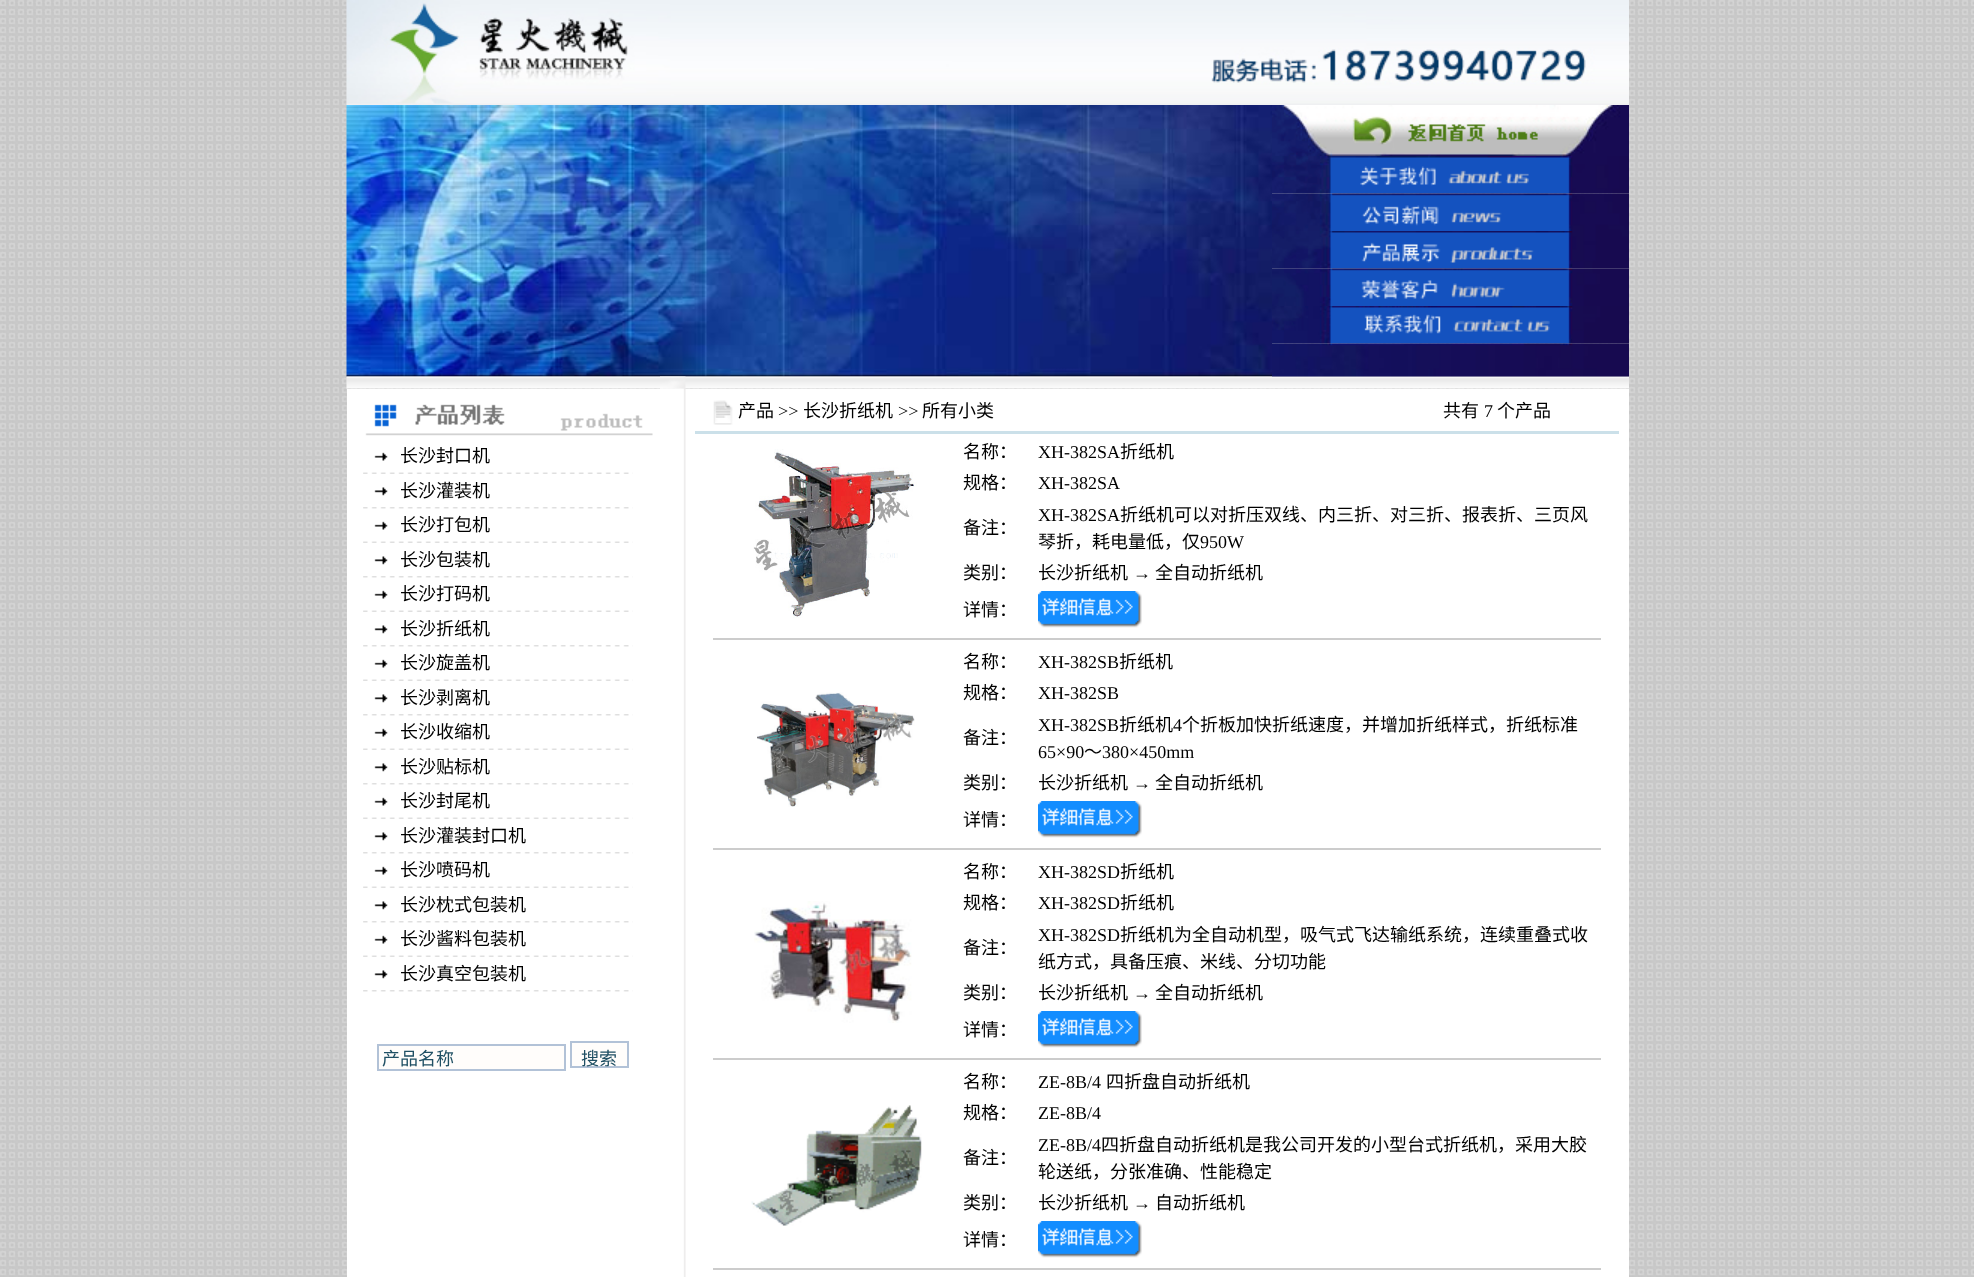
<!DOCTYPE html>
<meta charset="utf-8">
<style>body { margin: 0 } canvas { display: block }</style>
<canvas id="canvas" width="1974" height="1277"></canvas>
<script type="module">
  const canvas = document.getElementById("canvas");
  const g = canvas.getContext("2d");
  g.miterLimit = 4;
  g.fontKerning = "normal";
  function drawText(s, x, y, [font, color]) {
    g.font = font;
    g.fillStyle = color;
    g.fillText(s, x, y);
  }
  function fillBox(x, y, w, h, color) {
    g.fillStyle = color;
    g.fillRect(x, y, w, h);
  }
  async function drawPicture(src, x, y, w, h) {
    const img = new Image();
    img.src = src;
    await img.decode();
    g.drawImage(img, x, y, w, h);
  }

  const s1 = ["18px Noto Sans CJK SC", "#000000"];
  const s2 = ["18px Noto Sans CJK SC", "#205064"];
  const s3 = ["18px Liberation Serif", "#000000"];

  fillBox(0, 0, 1974, 1277, "#FFFFFF");
  await drawPicture("pic1.png", 0, 0, 1974, 1277);
  await drawPicture("pic2.png", 346, 0, 1283, 105);
  await drawPicture("pic3.png", 346, 105, 926, 272);
  await drawPicture("pic4.png", 1272, 105, 357, 51);
  await drawPicture("pic5.png", 1272, 156, 357, 38);
  await drawPicture("pic6.png", 1272, 193, 357, 38);
  await drawPicture("pic7.png", 1272, 231, 357, 38);
  await drawPicture("pic8.png", 1272, 268, 357, 38);
  await drawPicture("pic9.png", 1272, 306, 357, 38);
  await drawPicture("pic11.png", 346, 376, 1283, 13);
  await drawPicture("pic10.png", 1272, 343, 357, 34);
  await drawPicture("pic12.png", 660, 376, 26, 13);
  fillBox(347, 389, 1282, 888, "#FFFFFF");
  await drawPicture("pic13.png", 365, 404, 288, 32);
  await drawPicture("pic14.png", 374, 452, 14, 9);
  drawText("长沙封口机", 400, 462, s1);
  await drawPicture("pic15.png", 363, 472, 270, 2);
  await drawPicture("pic16.png", 374, 487, 14, 9);
  drawText("长沙灌装机", 400, 497, s1);
  await drawPicture("pic17.png", 363, 507, 270, 2);
  await drawPicture("pic14.png", 374, 521, 14, 9);
  drawText("长沙打包机", 400, 531, s1);
  await drawPicture("pic15.png", 363, 541, 270, 2);
  await drawPicture("pic16.png", 374, 556, 14, 9);
  drawText("长沙包装机", 400, 566, s1);
  await drawPicture("pic17.png", 363, 576, 270, 2);
  await drawPicture("pic14.png", 374, 590, 14, 9);
  drawText("长沙打码机", 400, 600, s1);
  await drawPicture("pic15.png", 363, 610, 270, 2);
  await drawPicture("pic16.png", 374, 625, 14, 9);
  drawText("长沙折纸机", 400, 635, s1);
  await drawPicture("pic17.png", 363, 645, 270, 2);
  await drawPicture("pic14.png", 374, 659, 14, 9);
  drawText("长沙旋盖机", 400, 669, s1);
  await drawPicture("pic15.png", 363, 679, 270, 2);
  await drawPicture("pic16.png", 374, 694, 14, 9);
  drawText("长沙剥离机", 400, 704, s1);
  await drawPicture("pic17.png", 363, 714, 270, 2);
  await drawPicture("pic14.png", 374, 728, 14, 9);
  drawText("长沙收缩机", 400, 738, s1);
  await drawPicture("pic15.png", 363, 748, 270, 2);
  await drawPicture("pic16.png", 374, 763, 14, 9);
  drawText("长沙贴标机", 400, 773, s1);
  await drawPicture("pic17.png", 363, 783, 270, 2);
  await drawPicture("pic14.png", 374, 797, 14, 9);
  drawText("长沙封尾机", 400, 807, s1);
  await drawPicture("pic15.png", 363, 817, 270, 2);
  await drawPicture("pic16.png", 374, 832, 14, 9);
  drawText("长沙灌装封口机", 400, 842, s1);
  await drawPicture("pic17.png", 363, 852, 270, 2);
  await drawPicture("pic14.png", 374, 866, 14, 9);
  drawText("长沙喷码机", 400, 876, s1);
  await drawPicture("pic15.png", 363, 886, 270, 2);
  await drawPicture("pic16.png", 374, 901, 14, 9);
  drawText("长沙枕式包装机", 400, 911, s1);
  await drawPicture("pic17.png", 363, 921, 270, 2);
  await drawPicture("pic14.png", 374, 935, 14, 9);
  drawText("长沙酱料包装机", 400, 945, s1);
  await drawPicture("pic15.png", 363, 955, 270, 2);
  await drawPicture("pic16.png", 374, 970, 14, 9);
  drawText("长沙真空包装机", 400, 980, s1);
  await drawPicture("pic17.png", 363, 990, 270, 2);
  g.fillStyle = "#FFFDFB";
  g.beginPath();
  g.rect(378, 1045, 187, 25);
  g.fill();
  g.strokeStyle = "#B2C2D7";
  g.lineWidth = 2;
  g.stroke();
  drawText("产品名称", 382, 1065, s2);
  g.fillStyle = "#FFFDFB";
  g.beginPath();
  g.rect(571, 1042, 57, 25);
  g.fill();
  g.stroke();
  drawText("搜索", 581, 1065, s2);
  await drawPicture("pic18.png", 660, 388, 26, 889);
  await drawPicture("pic19.png", 713, 400, 20, 25);
  drawText("产品", 738, 417, s1);
  drawText(">>", 778, 417, s3);
  drawText("长沙折纸机", 803, 417, s1);
  drawText(">>", 898, 417, s3);
  drawText("所有小类", 922, 417, s1);
  drawText("共有", 1443, 417, s1);
  drawText("7", 1484, 417, s3);
  drawText("个产品", 1497, 417, s1);
  fillBox(695, 431, 924, 3, "#CBE0E9");
  await drawPicture("pic20.png", 753, 449, 164, 169);
  drawText("名称：", 963, 458, s1);
  drawText("XH-382SA", 1038, 458, s3);
  drawText("折纸机", 1120, 458, s1);
  drawText("规格：", 963, 489, s1);
  drawText("XH-382SA", 1038, 489, s3);
  drawText("备注：", 963, 534, s1);
  drawText("XH-382SA", 1038, 521, s3);
  drawText("折纸机可以对折压双线、内三折、对三折、报表折、三页风", 1120, 521, s1);
  drawText("琴折，耗电量低，仅", 1038, 548, s1);
  drawText("950W", 1200, 548, s3);
  drawText("类别：", 963, 579, s1);
  drawText("长沙折纸机", 1038, 579, s1);
  drawText("→", 1133, 579, s3);
  drawText("全自动折纸机", 1155, 579, s1);
  drawText("详情：", 963, 616, s1);
  await drawPicture("pic21.png", 1038, 591, 104, 37);
  fillBox(713, 638, 888, 2, "#CCCCCC");
  drawText("名称：", 963, 668, s1);
  drawText("XH-382SB", 1038, 668, s3);
  drawText("折纸机", 1119, 668, s1);
  await drawPicture("pic22.png", 757, 692, 158, 115);
  drawText("规格：", 963, 699, s1);
  drawText("XH-382SB", 1038, 699, s3);
  drawText("备注：", 963, 744, s1);
  drawText("XH-382SB", 1038, 731, s3);
  drawText("折纸机", 1119, 731, s1);
  drawText("4", 1173, 731, s3);
  drawText("个折板加快折纸速度，并增加折纸样式，折纸标准", 1182, 731, s1);
  drawText("65×90", 1038, 758, s3);
  drawText("～", 1084, 758, s1);
  drawText("380×450mm", 1102, 758, s3);
  drawText("类别：", 963, 789, s1);
  drawText("长沙折纸机", 1038, 789, s1);
  drawText("→", 1133, 789, s3);
  drawText("全自动折纸机", 1155, 789, s1);
  drawText("详情：", 963, 826, s1);
  await drawPicture("pic21.png", 1038, 801, 104, 37);
  fillBox(713, 848, 888, 2, "#CCCCCC");
  drawText("名称：", 963, 878, s1);
  drawText("XH-382SD", 1038, 878, s3);
  drawText("折纸机", 1120, 878, s1);
  await drawPicture("pic23.png", 754, 901, 158, 122);
  drawText("规格：", 963, 909, s1);
  drawText("XH-382SD", 1038, 909, s3);
  drawText("折纸机", 1120, 909, s1);
  drawText("备注：", 963, 954, s1);
  drawText("XH-382SD", 1038, 941, s3);
  drawText("折纸机为全自动机型，吸气式飞达输纸系统，连续重叠式收", 1120, 941, s1);
  drawText("纸方式，具备压痕、米线、分切功能", 1038, 968, s1);
  drawText("类别：", 963, 999, s1);
  drawText("长沙折纸机", 1038, 999, s1);
  drawText("→", 1133, 999, s3);
  drawText("全自动折纸机", 1155, 999, s1);
  drawText("详情：", 963, 1036, s1);
  await drawPicture("pic21.png", 1038, 1011, 104, 37);
  fillBox(713, 1058, 888, 2, "#CCCCCC");
  drawText("名称：", 963, 1088, s1);
  drawText("ZE-8B/4", 1038, 1088, s3);
  drawText("四折盘自动折纸机", 1106, 1088, s1);
  await drawPicture("pic24.png", 751, 1105, 171, 121);
  drawText("规格：", 963, 1119, s1);
  drawText("ZE-8B/4", 1038, 1119, s3);
  drawText("备注：", 963, 1164, s1);
  drawText("ZE-8B/4", 1038, 1151, s3);
  drawText("四折盘自动折纸机是我公司开发的小型台式折纸机，采用大胶", 1101, 1151, s1);
  drawText("轮送纸，分张准确、性能稳定", 1038, 1178, s1);
  drawText("类别：", 963, 1209, s1);
  drawText("长沙折纸机", 1038, 1209, s1);
  drawText("→", 1133, 1209, s3);
  drawText("自动折纸机", 1155, 1209, s1);
  drawText("详情：", 963, 1246, s1);
  await drawPicture("pic21.png", 1038, 1221, 104, 37);
  fillBox(713, 1268, 888, 2, "#CCCCCC");
</script>
